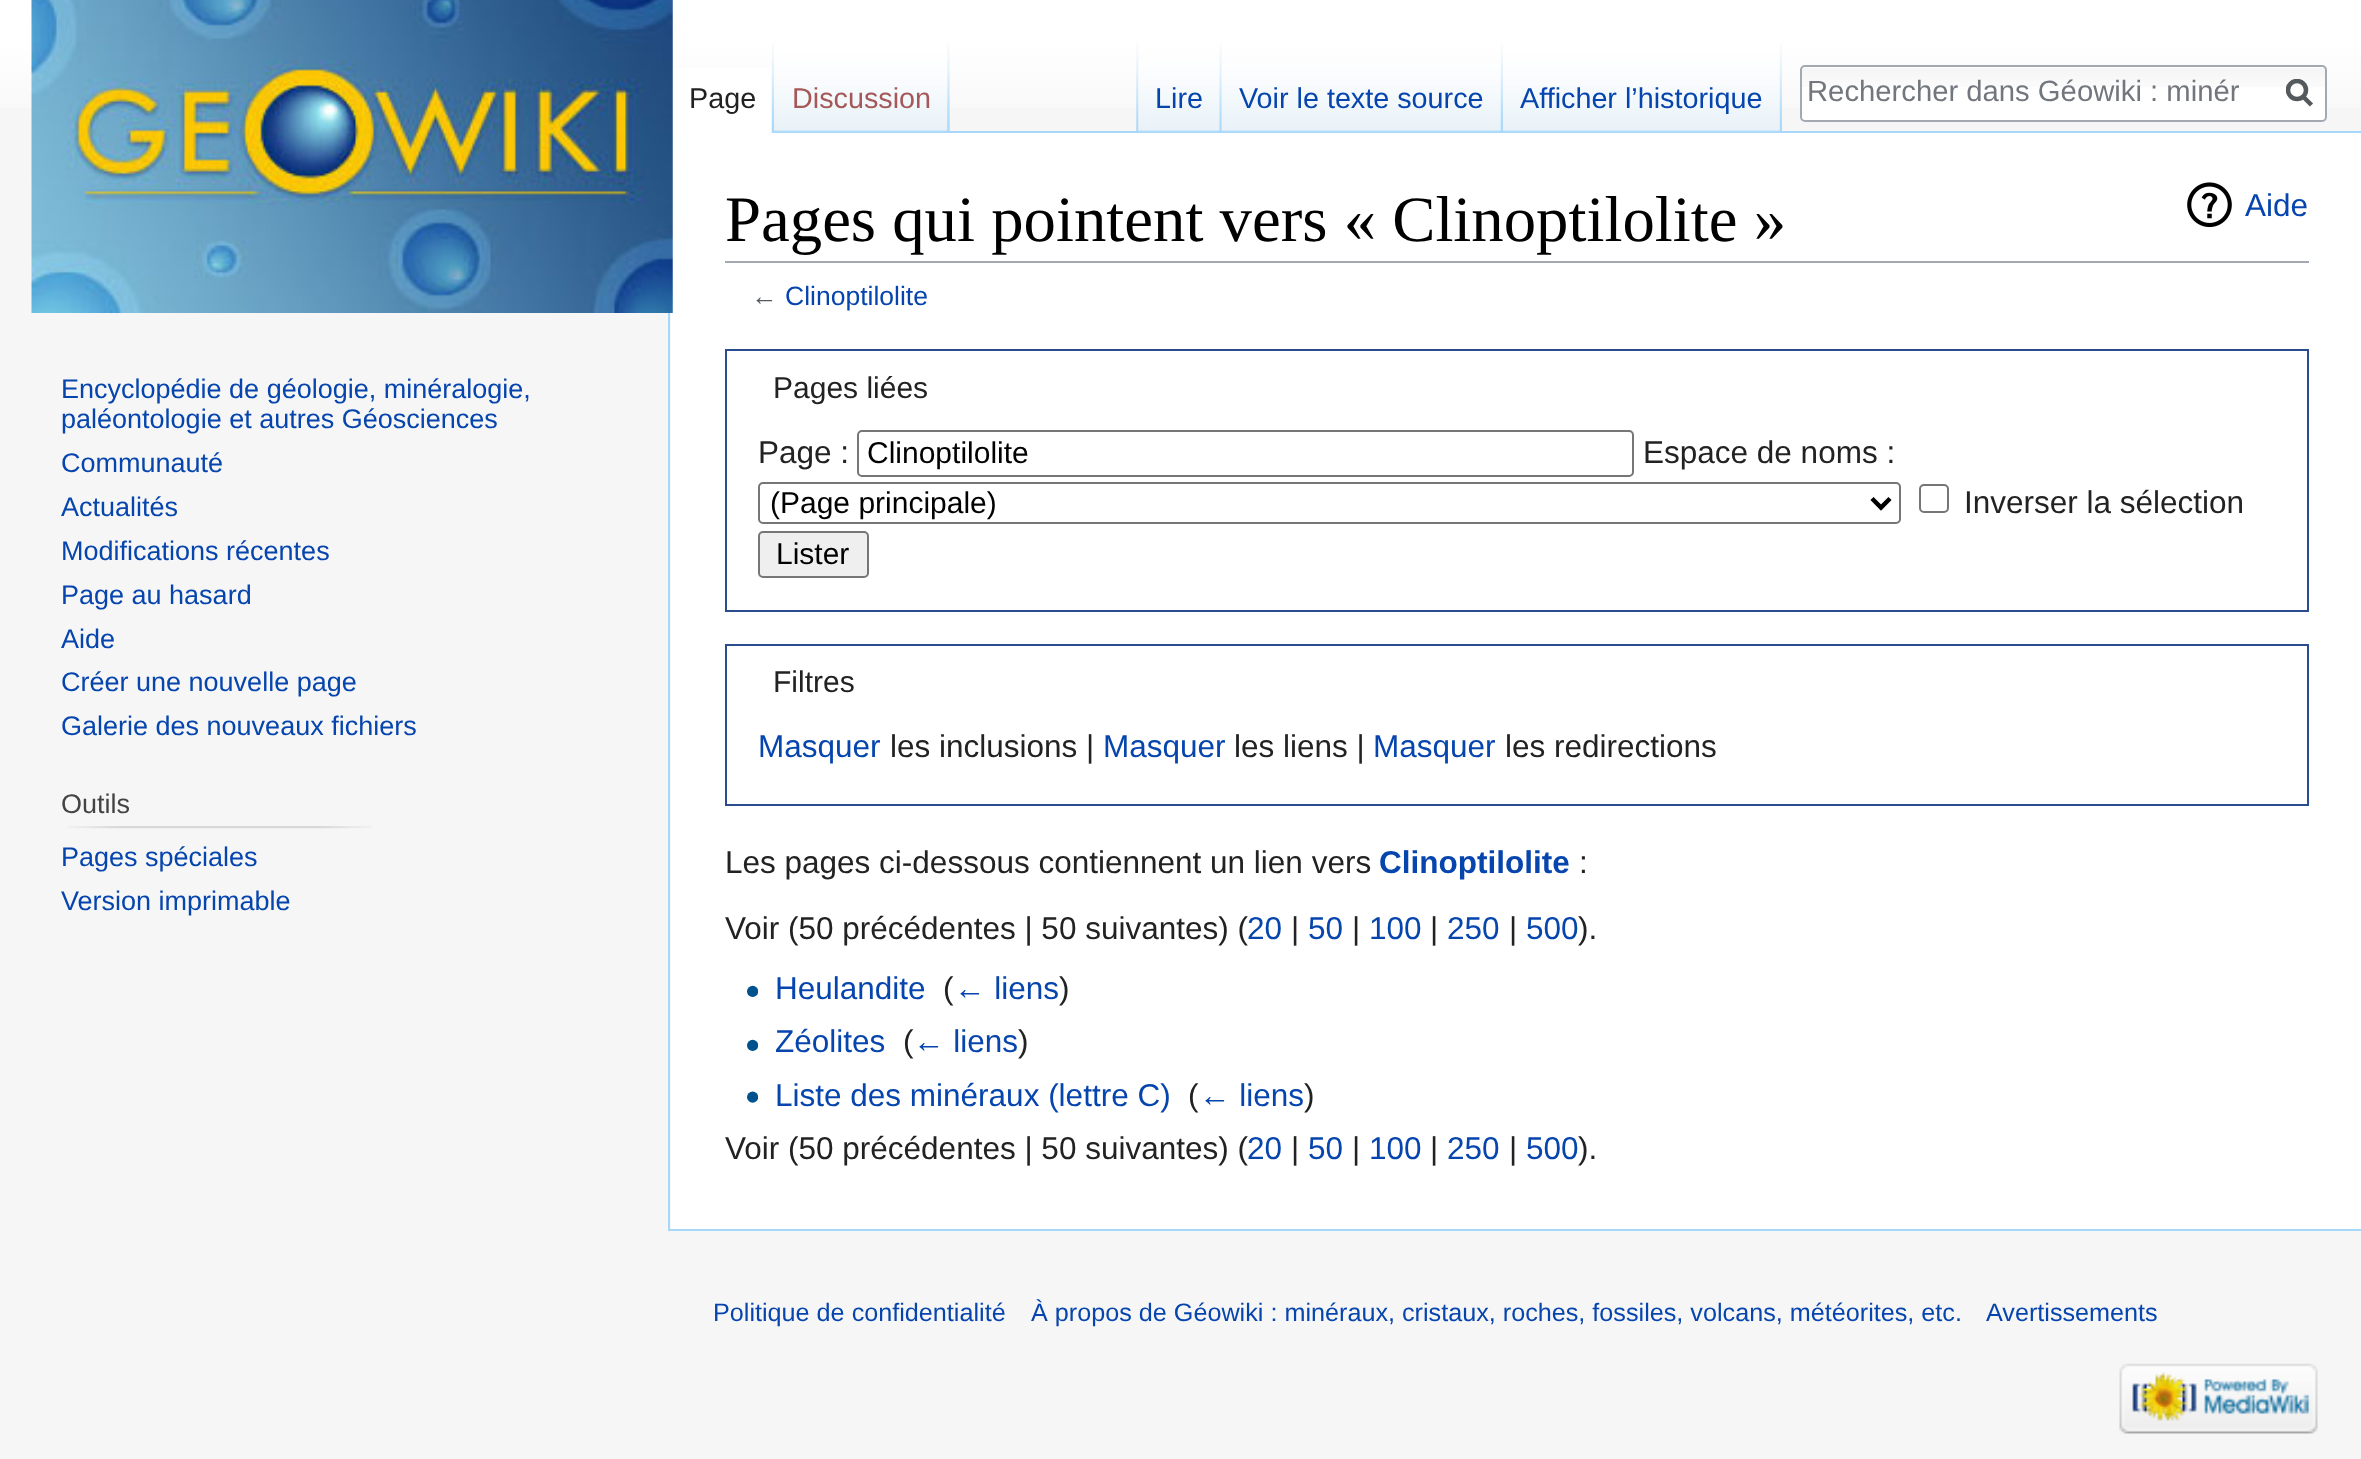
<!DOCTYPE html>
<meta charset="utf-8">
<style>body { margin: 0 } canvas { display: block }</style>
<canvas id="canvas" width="2361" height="1459"></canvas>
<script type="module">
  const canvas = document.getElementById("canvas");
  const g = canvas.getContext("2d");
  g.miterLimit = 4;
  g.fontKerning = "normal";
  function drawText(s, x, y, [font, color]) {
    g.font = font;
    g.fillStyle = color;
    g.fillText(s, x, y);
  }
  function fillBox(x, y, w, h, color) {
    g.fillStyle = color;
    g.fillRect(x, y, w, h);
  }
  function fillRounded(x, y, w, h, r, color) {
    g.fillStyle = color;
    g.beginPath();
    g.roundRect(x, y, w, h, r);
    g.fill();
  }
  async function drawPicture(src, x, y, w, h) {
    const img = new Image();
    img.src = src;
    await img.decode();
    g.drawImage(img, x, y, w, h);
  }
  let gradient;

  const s1 = ["28.75px Liberation Sans", "#222222"];
  const s2 = ["28.75px Liberation Sans", "#A55858"];
  const s3 = ["28.75px Liberation Sans", "#0645AD"];
  const s4 = ["29.25px Liberation Sans", "#72777D"];
  const s5 = ["27px Liberation Sans", "#0645AD"];
  const s6 = ["27px Liberation Sans", "#444444"];
  const s7 = ["64.75px Liberation Serif", "#000000"];
  const s8 = ["31.5px Liberation Sans", "#0645AD"];
  const s9 = ["26.5px Liberation Sans", "#54595D"];
  const s10 = ["26.5px Liberation Sans", "#0645AD"];
  const s11 = ["30px Liberation Sans", "#222222"];
  const s12 = ["31.5px Liberation Sans", "#222222"];
  const s13 = ["30px Liberation Sans", "#000000"];
  const s14 = ["bold 31.5px Liberation Sans", "#0645AD"];
  const s15 = ["25.2px Liberation Sans", "#0645AD"];

  fillBox(0, 0, 2361, 1459, "#F6F6F6");
  gradient = g.createLinearGradient(1181, -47, 1181, 133);
  gradient.addColorStop(0.5, "#FFFFFF");
  gradient.addColorStop(1, "#F6F6F6");
  g.fillStyle = gradient;
  g.fillRect(0, 0, 2361, 108);
  await drawPicture("pic1.png", 949, 43, 1, 88);
  fillBox(672, 68, 100, 65, "#FFFFFF");
  await drawPicture("pic2.png", 771, 43, 3, 90);
  drawText("Page", 689, 108, s1);
  fillBox(774, 131, 1587, 2, "#A7D7F9");
  await drawPicture("pic3.png", 774, 43, 176, 89);
  await drawPicture("pic4.png", 947, 43, 3, 89);
  drawText("Discussion", 792, 108, s2);
  await drawPicture("pic5.png", 1136, 43, 3, 88);
  await drawPicture("pic6.png", 1138, 60, 84, 72);
  await drawPicture("pic7.png", 1219, 43, 3, 89);
  drawText("Lire", 1155, 108, s3);
  await drawPicture("pic8.png", 1221, 64, 280, 68);
  await drawPicture("pic9.png", 1500, 43, 3, 89);
  drawText("Voir le texte source", 1239, 108, s3);
  await drawPicture("pic10.png", 1503, 43, 277, 89);
  await drawPicture("pic11.png", 1779, 43, 3, 89);
  drawText("Afficher l’historique", 1520, 108, s3);
  fillRounded(1800, 65, 527, 57, 5, "#FFFFFF");
  await drawPicture("pic12.png", 1800, 68, 525, 19);
  g.beginPath();
  g.roundRect(1801, 66, 525, 55, 4);
  g.strokeStyle = "#A2A9B1";
  g.lineWidth = 2;
  g.stroke();
  drawText("Rechercher dans Géowiki : minér", 1807, 101, s4);
  g.beginPath();
  g.moveTo(2311.5, 105);
  g.lineTo(2302.5, 96);
  g.strokeStyle = "#54595D";
  g.lineWidth = 4.5;
  g.stroke();
  g.save();
  g.beginPath();
  g.rect(2286, 79, 27, 29);
  g.clip();
  g.beginPath();
  g.arc(2297, 90, 9, 0, Math.PI * 2);
  g.stroke();
  g.restore();
  fillBox(671, 133, 1690, 1096, "#FFFFFF");
  await drawPicture("pic13.png", 31, 0, 642, 313);
  drawText("Encyclopédie de géologie, minéralogie,", 61, 398, s5);
  drawText("paléontologie et autres Géosciences", 61, 428, s5);
  drawText("Communauté", 61, 472, s5);
  drawText("Actualités", 61, 516, s5);
  drawText("Modifications récentes", 61, 560, s5);
  drawText("Page au hasard", 61, 604, s5);
  drawText("Aide", 61, 648, s5);
  drawText("Créer une nouvelle page", 61, 691, s5);
  drawText("Galerie des nouveaux fichiers", 61, 735, s5);
  drawText("Outils", 61, 813, s6);
  await drawPicture("pic14.png", 67, 826, 305, 3);
  drawText("Pages spéciales", 61, 866, s5);
  drawText("Version imprimable", 61, 910, s5);
  fillBox(668, 1229, 1693, 2, "#A7D7F9");
  fillBox(668, 313, 2, 918, "#A7D7F9");
  fillBox(725, 261, 1584, 2, "#A2A9B1");
  drawText("Pages qui pointent vers « Clinoptilolite »", 725, 241, s7);
  await drawPicture("pic15.png", 2187, 182, 45, 46);
  drawText("Aide", 2245, 216, s8);
  drawText("←", 751, 305, s9);
  drawText("Clinoptilolite", 785, 305, s10);
  g.strokeStyle = "#2A4B8D";
  g.lineWidth = 2;
  g.strokeRect(726, 350, 1582, 261);
  drawText("Pages liées", 773, 398, s11);
  drawText("Page :", 758, 463, s12);
  g.beginPath();
  g.roundRect(858, 431, 775, 45, 4);
  g.strokeStyle = "#767676";
  g.stroke();
  drawText("Clinoptilolite", 867, 463, s13);
  drawText("Espace de noms :", 1643, 463, s12);
  g.beginPath();
  g.roundRect(759, 483, 1141, 40, 4);
  g.stroke();
  g.beginPath();
  g.moveTo(1872, 498.5);
  g.lineTo(1881, 507.5);
  g.lineTo(1890, 498.5);
  g.strokeStyle = "#000000";
  g.lineWidth = 4.5;
  g.stroke();
  drawText("(Page principale)", 770, 513, s13);
  g.beginPath();
  g.roundRect(1920, 485, 28, 27, 4);
  g.strokeStyle = "#767676";
  g.lineWidth = 2;
  g.stroke();
  drawText("Inverser la sélection", 1964, 513, s12);
  g.fillStyle = "#EFEFEF";
  g.beginPath();
  g.roundRect(759, 532, 109, 45, 4);
  g.fill();
  g.stroke();
  drawText("Lister", 776, 564, s13);
  g.strokeStyle = "#2A4B8D";
  g.strokeRect(726, 645, 1582, 160);
  drawText("Filtres", 773, 692, s11);
  drawText("Masquer", 758, 757, s8);
  drawText("les inclusions |", 890, 757, s12);
  drawText("Masquer", 1103, 757, s8);
  drawText("les liens |", 1234, 757, s12);
  drawText("Masquer", 1373, 757, s8);
  drawText("les redirections", 1505, 757, s12);
  drawText("Les pages ci-dessous contiennent un lien vers", 725, 873, s12);
  drawText("Clinoptilolite", 1379, 873, s14);
  drawText(":", 1579, 873, s12);
  drawText("Voir (50 précédentes | 50 suivantes) (", 725, 939, s12);
  drawText("20", 1247, 939, s8);
  drawText("|", 1291, 939, s12);
  drawText("50", 1308, 939, s8);
  drawText("|", 1352, 939, s12);
  drawText("100", 1369, 939, s8);
  drawText("|", 1430, 939, s12);
  drawText("250", 1447, 939, s8);
  drawText("|", 1509, 939, s12);
  drawText("500", 1526, 939, s8);
  drawText(").", 1578, 939, s12);
  await drawPicture("pic16.png", 747, 985, 11, 12);
  drawText("Heulandite", 775, 999, s8);
  drawText("(", 943, 999, s12);
  drawText("← liens", 954, 999, s8);
  drawText(")", 1059, 999, s12);
  await drawPicture("pic16.png", 747, 1039, 11, 12);
  drawText("Zéolites", 775, 1052, s8);
  drawText("(", 903, 1052, s12);
  drawText("← liens", 913, 1052, s8);
  drawText(")", 1018, 1052, s12);
  await drawPicture("pic17.png", 747, 1091, 11, 12);
  drawText("Liste des minéraux (lettre C)", 775, 1106, s8);
  drawText("(", 1188, 1106, s12);
  drawText("← liens", 1199, 1106, s8);
  drawText(")", 1304, 1106, s12);
  drawText("Voir (50 précédentes | 50 suivantes) (", 725, 1159, s12);
  drawText("20", 1247, 1159, s8);
  drawText("|", 1291, 1159, s12);
  drawText("50", 1308, 1159, s8);
  drawText("|", 1352, 1159, s12);
  drawText("100", 1369, 1159, s8);
  drawText("|", 1430, 1159, s12);
  drawText("250", 1447, 1159, s8);
  drawText("|", 1509, 1159, s12);
  drawText("500", 1526, 1159, s8);
  drawText(").", 1578, 1159, s12);
  drawText("Politique de confidentialité", 713, 1321, s15);
  drawText("À propos de Géowiki : minéraux, cristaux, roches, fossiles, volcans, météorites, etc.", 1031, 1321, s15);
  drawText("Avertissements", 1986, 1321, s15);
  await drawPicture("pic18.png", 2119, 1363, 199, 71);
</script>
